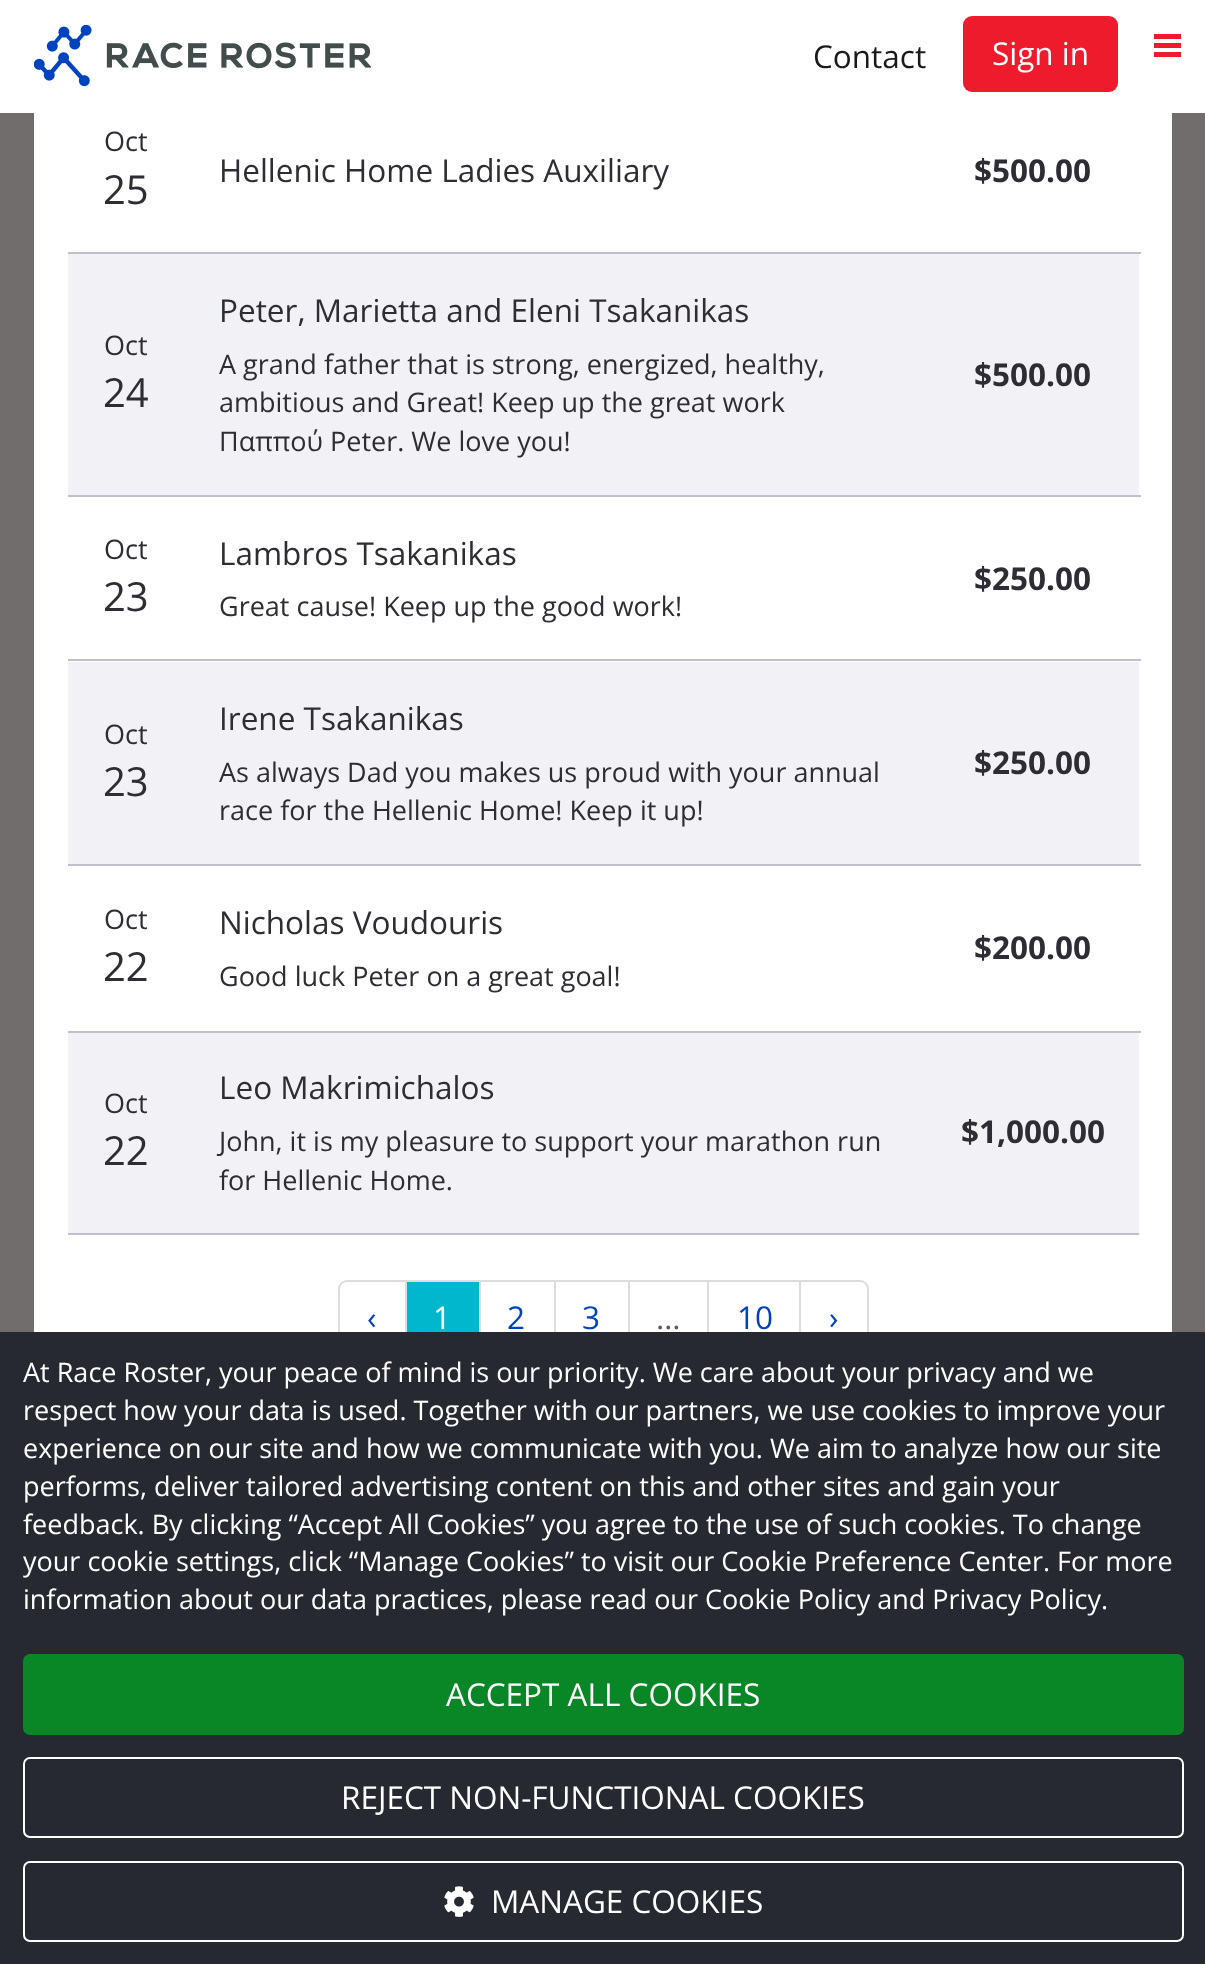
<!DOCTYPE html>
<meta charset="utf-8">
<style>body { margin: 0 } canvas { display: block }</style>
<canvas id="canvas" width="1205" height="1964"></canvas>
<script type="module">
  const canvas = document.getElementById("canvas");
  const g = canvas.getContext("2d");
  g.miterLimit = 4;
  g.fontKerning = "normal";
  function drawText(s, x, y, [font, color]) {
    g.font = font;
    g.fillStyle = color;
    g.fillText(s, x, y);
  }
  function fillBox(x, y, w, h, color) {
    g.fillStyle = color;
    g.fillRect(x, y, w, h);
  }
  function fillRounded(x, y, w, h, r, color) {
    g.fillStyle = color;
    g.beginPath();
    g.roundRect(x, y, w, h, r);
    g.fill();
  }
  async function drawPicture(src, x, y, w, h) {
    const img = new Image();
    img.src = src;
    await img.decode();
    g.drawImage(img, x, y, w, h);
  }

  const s1 = ["31.5px Open Sans", "#1A1A1A"];
  const s2 = ["31.5px Open Sans", "#FFFFFF"];
  const s3 = ["27px Open Sans", "#2D2D33"];
  const s4 = ["40px Open Sans", "#2D2D33"];
  const s5 = ["31.5px Open Sans", "#2D2D33"];
  const s6 = ["bold 31.5px Open Sans", "#2D2D33"];
  const s7 = ["31.5px Open Sans", "#0043BF"];
  const s8 = ["31.5px Open Sans", "#5C5C66"];
  const s9 = ["27px Open Sans", "#FFFFFF"];

  fillBox(0, 0, 1205, 1964, "#726D6D");
  fillBox(0, 0, 1205, 113, "#FFFFFF");
  await drawPicture("pic1.png", 34, 25, 337, 62);
  drawText("Contact", 813, 68, s1);
  fillRounded(963, 16, 155, 76, 9, "#EE1B2D");
  drawText("Sign in", 992, 65, s2);
  fillBox(1154, 34, 27, 5, "#EE1B2D");
  fillBox(1154, 43, 27, 5, "#EE1B2D");
  fillBox(1154, 52, 27, 5, "#EE1B2D");
  fillBox(34, 113, 1138, 1219, "#FFFFFF");
  fillBox(68, 1233, 1071, 2, "#C0C0CC");
  drawText("Oct", 104, 151, s3);
  drawText("25", 103, 204, s4);
  drawText("Hellenic Home Ladies Auxiliary", 219, 182, s5);
  drawText("$500.00", 974, 182, s6);
  fillBox(68, 254, 1071, 241, "#F2F2F6");
  fillBox(68, 252, 1073, 2, "#C0C0CC");
  drawText("Oct", 104, 355, s3);
  drawText("24", 103, 407, s4);
  drawText("Peter, Marietta and Eleni Tsakanikas", 219, 322, s5);
  drawText("A grand father that is strong, energized, healthy,", 219, 374, s3);
  drawText("ambitious and Great! Keep up the great work", 219, 412, s3);
  drawText("Παππού Peter. We love you!", 219, 451, s3);
  drawText("$500.00", 974, 386, s6);
  fillBox(68, 495, 1073, 2, "#C0C0CC");
  drawText("Oct", 104, 559, s3);
  drawText("23", 103, 611, s4);
  drawText("Lambros Tsakanikas", 219, 565, s5);
  drawText("Great cause! Keep up the good work!", 219, 616, s3);
  drawText("$250.00", 974, 590, s6);
  fillBox(68, 662, 1071, 202, "#F2F2F6");
  fillBox(68, 659, 1073, 2, "#C0C0CC");
  drawText("Oct", 104, 744, s3);
  drawText("23", 103, 796, s4);
  drawText("Irene Tsakanikas", 219, 730, s5);
  drawText("As always Dad you makes us proud with your annual", 219, 782, s3);
  drawText("race for the Hellenic Home! Keep it up!", 219, 820, s3);
  drawText("$250.00", 974, 774, s6);
  fillBox(68, 864, 1073, 2, "#C0C0CC");
  drawText("Oct", 104, 929, s3);
  drawText("22", 103, 981, s4);
  drawText("Nicholas Voudouris", 219, 934, s5);
  drawText("Good luck Peter on a great goal!", 219, 986, s3);
  drawText("$200.00", 974, 959, s6);
  fillBox(68, 1033, 1071, 200, "#F2F2F6");
  fillBox(68, 1031, 1073, 2, "#C0C0CC");
  drawText("Oct", 104, 1113, s3);
  drawText("22", 103, 1165, s4);
  drawText("Leo Makrimichalos", 219, 1099, s5);
  drawText("John, it is my pleasure to support your marathon run", 219, 1151, s3);
  drawText("for Hellenic Home.", 219, 1190, s3);
  drawText("$1,000.00", 961, 1143, s6);
  g.beginPath();
  g.roundRect(339, 1281, 67, 75, [8, 0, 0, 8]);
  g.strokeStyle = "#DDDDDD";
  g.lineWidth = 2;
  g.stroke();
  drawText("‹", 367, 1329, s7);
  fillBox(407, 1282, 72, 50, "#00B7CD");
  g.strokeRect(406, 1281, 75, 75);
  drawText("1", 433, 1329, s2);
  fillBox(481, 1282, 1, 50, "#FFFFFF");
  g.strokeRect(480, 1281, 75, 75);
  drawText("2", 507, 1329, s7);
  g.strokeRect(555, 1281, 74, 75);
  drawText("3", 582, 1329, s7);
  g.strokeRect(629, 1281, 79, 75);
  drawText("…", 656, 1329, s8);
  g.strokeRect(708, 1281, 92, 75);
  drawText("10", 737, 1329, s7);
  g.fillStyle = "#FFFFFF";
  g.beginPath();
  g.roundRect(800, 1281, 68, 75, [0, 8, 8, 0]);
  g.fill();
  g.stroke();
  drawText("›", 829, 1329, s7);
  fillBox(0, 1332, 1205, 632, "#272930");
  drawText("At Race Roster, your peace of mind is our priority. We care about your privacy and we", 23, 1382, s9);
  drawText("respect how your data is used. Together with our partners, we use cookies to improve your", 23, 1420, s9);
  drawText("experience on our site and how we communicate with you. We aim to analyze how our site", 23, 1458, s9);
  drawText("performs, deliver tailored advertising content on this and other sites and gain your", 23, 1496, s9);
  drawText("feedback. By clicking “Accept All Cookies” you agree to the use of such cookies. To change", 23, 1534, s9);
  drawText("your cookie settings, click “Manage Cookies” to visit our Cookie Preference Center. For more", 23, 1571, s9);
  drawText("information about our data practices, please read our Cookie Policy and Privacy Policy.", 23, 1609, s9);
  fillRounded(23, 1654, 1161, 81, 7, "#098726");
  drawText("ACCEPT ALL COOKIES", 446, 1706, s2);
  g.beginPath();
  g.roundRect(24, 1758, 1159, 79, 6);
  g.strokeStyle = "#FFFFFF";
  g.stroke();
  drawText("REJECT NON-FUNCTIONAL COOKIES", 341, 1809, s2);
  g.beginPath();
  g.roundRect(24, 1862, 1159, 79, 6);
  g.stroke();
  await drawPicture("pic2.png", 444, 1886, 30, 31);
  drawText("MANAGE COOKIES", 491, 1913, s2);
</script>
